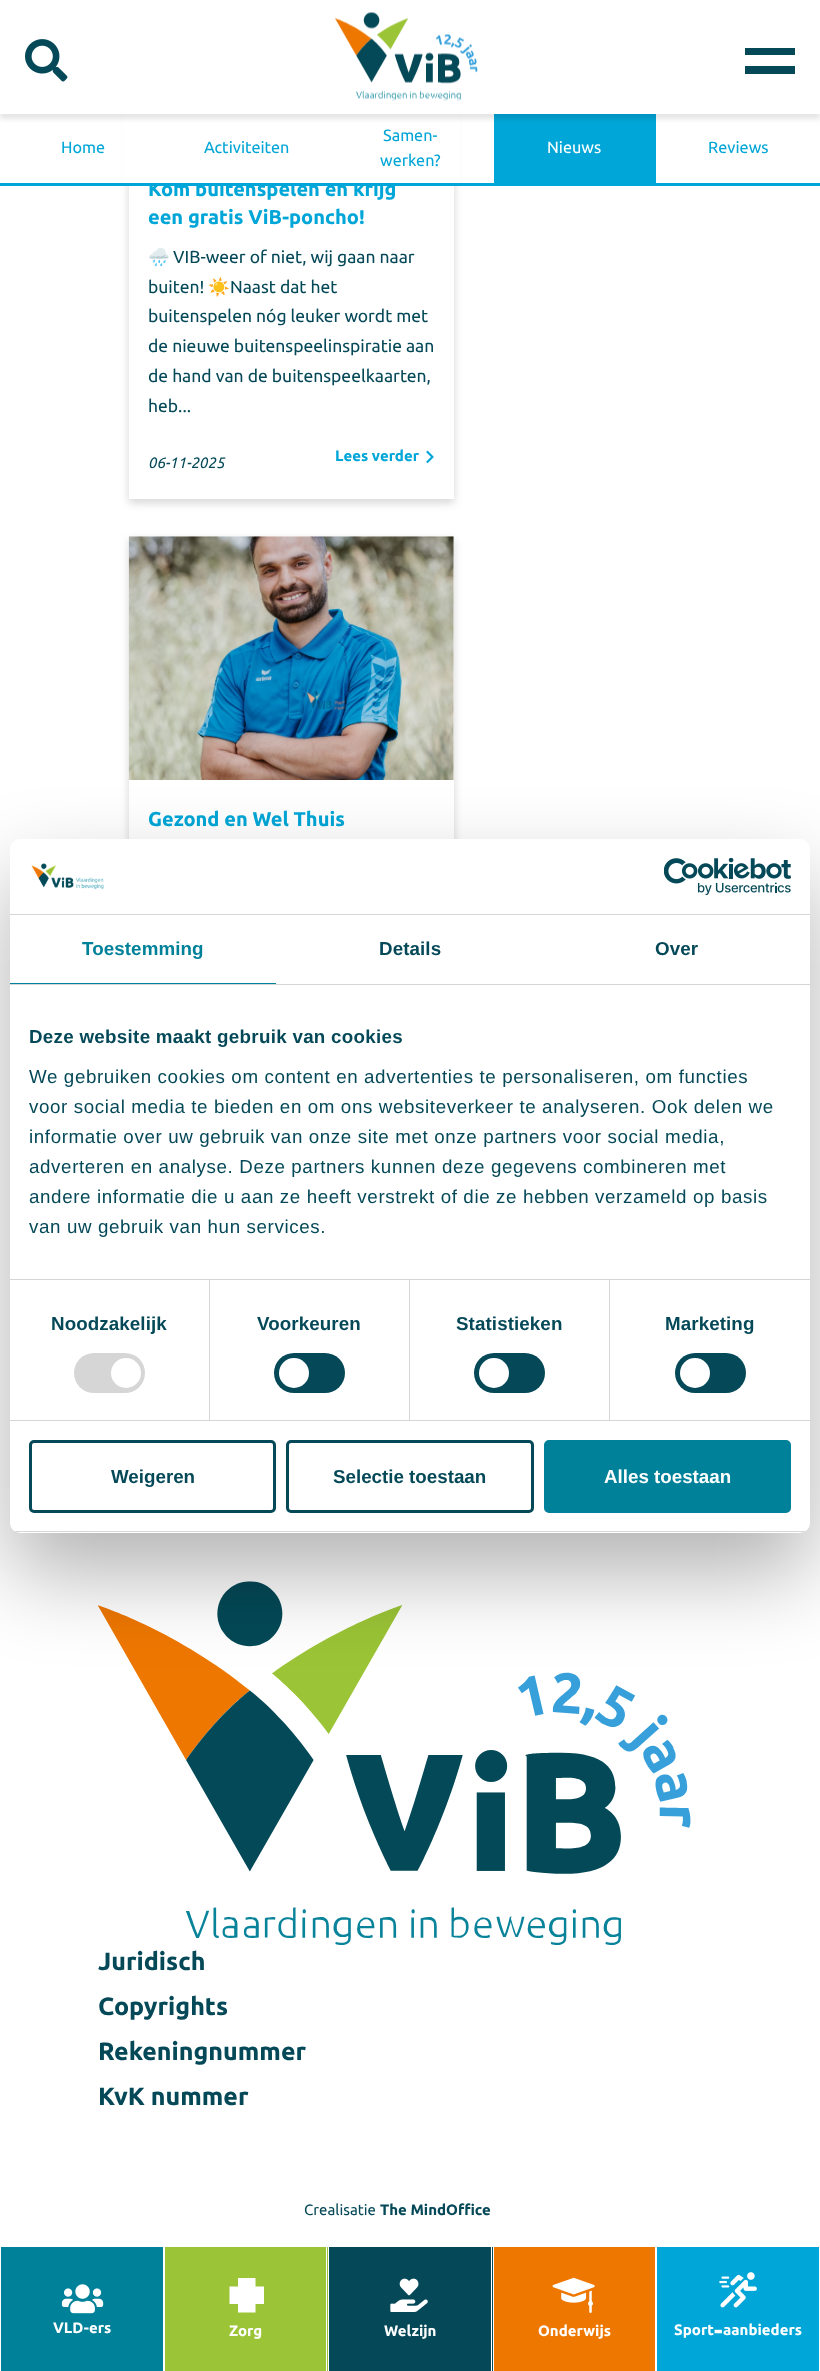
<!DOCTYPE html>
<meta charset="utf-8">
<style>body { margin: 0 } canvas { display: block }</style>
<canvas id="canvas" width="820" height="2371"></canvas>
<script type="module">
  const canvas = document.getElementById("canvas");
  const g = canvas.getContext("2d");
  g.miterLimit = 4;
  g.fontKerning = "normal";
  function drawText(s, x, y, [font, color]) {
    g.font = font;
    g.fillStyle = color;
    g.fillText(s, x, y);
  }
  function fillBox(x, y, w, h, color) {
    g.fillStyle = color;
    g.fillRect(x, y, w, h);
  }
  function fillRounded(x, y, w, h, r, color) {
    g.fillStyle = color;
    g.beginPath();
    g.roundRect(x, y, w, h, r);
    g.fill();
  }
  async function drawPicture(src, x, y, w, h) {
    const img = new Image();
    img.src = src;
    await img.decode();
    g.drawImage(img, x, y, w, h);
  }

  const s1 = ["bold 20px Ubuntu", "#00A6D7"];
  const s2 = ["16.25px Ubuntu", "#00A6D7"];
  const s3 = ["16.25px Ubuntu", "#FFFFFF"];
  const s4 = ["17.5px Noto Color Emoji", "#054958"];
  const s5 = ["17.5px Ubuntu", "#054958"];
  const s6 = ["italic 15px Ubuntu", "#054958"];
  const s7 = ["bold 15px Ubuntu", "#00A6D7"];
  const s8 = ["bold 25px Ubuntu", "#054958"];
  const s9 = ["15px Ubuntu", "#054958"];
  const s10 = ["bold 15px Ubuntu", "#054958"];
  const s11 = ["bold 15px Ubuntu", "#FFFFFF"];
  const s12 = ["bold 25px Ubuntu", "#FFFFFF"];
  const s13 = ["bold 18.75px Liberation Sans", "#00819A"];
  const s14 = ["bold 18.75px Liberation Sans", "#054958"];
  const s15 = ["18.75px Liberation Sans", "#054958"];
  const s16 = ["bold 18.75px Liberation Sans", "#FFFFFF"];

  fillBox(0, 0, 820, 2371, "#FFFFFF");
  g.fillStyle = "rgba(0, 0, 0, 0.16)";
  g.filter = "blur(4px)";
  g.beginPath();
  g.rect(129, -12, 325, 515);
  g.fill();
  g.filter = "none";
  fillBox(129, 186, 325, 313, "#FFFFFF");
  drawText("Kom buitenspelen en krijg", 148, 196, s1);
  fillBox(123, 114, 337, 69, "#FFFFFF");
  fillBox(0, 183, 820, 3, "#00A6D7");
  drawText("Home", 61, 153, s2);
  drawText("Activiteiten", 204, 153, s2);
  drawText("Samen-", 383, 141, s2);
  drawText("werken?", 380, 166, s2);
  fillBox(494, 114, 162, 69, "#00A6D7");
  drawText("Nieuws", 547, 153, s3);
  drawText("Reviews", 708, 153, s2);
  drawText("een gratis ViB-poncho!", 148, 224, s1);
  drawText("🌧️", 148, 263, s4);
  drawText("VIB-weer of niet, wij gaan naar", 173, 263, s5);
  drawText("buiten!", 148, 293, s5);
  drawText("☀️", 208, 293, s4);
  drawText("Naast dat het", 230, 293, s5);
  drawText("buitenspelen nóg leuker wordt met", 148, 322, s5);
  drawText("de nieuwe buitenspeelinspiratie aan", 148, 352, s5);
  drawText("de hand van de buitenspeelkaarten,", 148, 382, s5);
  drawText("heb...", 148, 412, s5);
  drawText("06-11-2025", 148, 468, s6);
  drawText("Lees verder", 335, 461, s7);
  await drawPicture("pic1.png", 426, 450, 8, 14);
  g.fillStyle = "rgba(0, 0, 0, 0.16)";
  g.filter = "blur(4px)";
  g.beginPath();
  g.rect(129, 540, 325, 595);
  g.fill();
  g.filter = "none";
  fillBox(129, 536, 325, 303, "#FFFFFF");
  await drawPicture("pic2.png", 128, 536, 326, 244);
  drawText("Gezond en Wel Thuis", 148, 826, s1);
  await drawPicture("pic3.png", 98, 1581, 593, 364);
  drawText("Juridisch", 98, 1970, s8);
  drawText("Copyrights", 98, 2015, s8);
  drawText("Rekeningnummer", 98, 2060, s8);
  drawText("KvK nummer", 98, 2105, s8);
  drawText("Crealisatie", 304, 2215, s9);
  drawText("The MindOffice", 380, 2215, s10);
  g.fillStyle = "rgba(0, 0, 0, 0.1)";
  g.filter = "blur(2.5px)";
  g.beginPath();
  g.rect(0, 5, 820, 114);
  g.fill();
  g.filter = "none";
  fillBox(0, 0, 820, 114, "#FFFFFF");
  await drawPicture("pic4.png", 25, 39, 43, 43);
  fillBox(745, 48, 50, 7, "#054958");
  fillBox(745, 66, 50, 8, "#054958");
  await drawPicture("pic5.png", 335, 12, 143, 89);
  fillBox(1, 2247, 162, 124, "#00819A");
  await drawPicture("pic6.png", 61, 2284, 43, 30);
  drawText("VLD-ers", 53, 2333, s11);
  fillBox(165, 2247, 163, 124, "#9BC436");
  fillBox(326, 2246, 1, 125, "#FFFFFF");
  g.beginPath();
  g.moveTo(238, 2278);
  g.lineTo(238, 2286.5);
  g.lineTo(229.5, 2286.5);
  g.lineTo(229.5, 2304);
  g.lineTo(238, 2304);
  g.lineTo(238, 2312.5);
  g.lineTo(255.5, 2312.5);
  g.lineTo(255.5, 2304);
  g.lineTo(264, 2304);
  g.lineTo(264, 2286.5);
  g.lineTo(255.5, 2286.5);
  g.lineTo(255.5, 2278);
  g.closePath();
  g.fill();
  drawText("Zorg", 229, 2336, s11);
  fillBox(329, 2247, 164, 124, "#054958");
  fillBox(491, 2246, 1, 125, "#FFFFFF");
  await drawPicture("pic7.png", 390, 2278, 38, 34);
  drawText("Welzijn", 384, 2336, s11);
  fillBox(494, 2247, 161, 124, "#EE7700");
  await drawPicture("pic8.png", 552, 2277, 43, 36);
  drawText("Onderwijs", 538, 2336, s11);
  fillBox(657, 2247, 162, 124, "#00A6D7");
  await drawPicture("pic9.png", 719, 2272, 38, 36);
  drawText("Sport", 674, 2335, s11);
  drawText("-", 714, 2339, s12);
  drawText("aanbieders", 723, 2335, s11);
  g.fillStyle = "rgba(0, 0, 0, 0.3)";
  g.filter = "blur(42.5px)";
  g.beginPath();
  g.roundRect(10, 879, 800, 694, 10);
  g.fill();
  g.filter = "none";
  fillRounded(10, 839, 800, 694, 10, "#FFFFFF");
  fillBox(10, 914, 800, 1, "#D6D6D6");
  await drawPicture("pic10.png", 31, 863, 73, 26);
  await drawPicture("pic11.png", 664, 858, 127, 37);
  fillBox(10, 984, 800, 1, "#D6D6D6");
  fillBox(10, 983, 266, 1, "#00819A");
  g.letterSpacing = "0.1px";
  drawText("Toestemming", 82, 955, s13);
  drawText("Details", 379, 955, s14);
  drawText("Over", 655, 955, s14);
  fillBox(10, 1279, 800, 1, "#D6D6D6");
  g.letterSpacing = "0.3px";
  drawText("Deze website maakt gebruik van cookies", 29, 1043, s14);
  g.letterSpacing = "0.62px";
  drawText("We gebruiken cookies om content en advertenties te personaliseren, om functies", 29, 1083, s15);
  drawText("voor social media te bieden en om ons websiteverkeer te analyseren. Ook delen we", 29, 1113, s15);
  drawText("informatie over uw gebruik van onze site met onze partners voor social media,", 29, 1143, s15);
  drawText("adverteren en analyse. Deze partners kunnen deze gegevens combineren met", 29, 1173, s15);
  drawText("andere informatie die u aan ze heeft verstrekt of die ze hebben verzameld op basis", 29, 1203, s15);
  drawText("van uw gebruik van hun services.", 29, 1233, s15);
  fillBox(10, 1420, 800, 1, "#D6D6D6");
  fillBox(209, 1280, 1, 140, "#D6D6D6");
  g.letterSpacing = "0.1px";
  drawText("Noodzakelijk", 51, 1330, s14);
  fillRounded(74, 1353, 71, 40, 20, "#D6D6D6");
  g.fillStyle = "#FFFFFF";
  g.beginPath();
  g.arc(126, 1373, 15, 0, Math.PI * 2);
  g.fill();
  fillBox(409, 1280, 1, 140, "#D6D6D6");
  drawText("Voorkeuren", 257, 1330, s14);
  fillRounded(274, 1353, 71, 40, 20, "#054958");
  g.fillStyle = "#FFFFFF";
  g.beginPath();
  g.arc(294, 1373, 15, 0, Math.PI * 2);
  g.fill();
  fillBox(609, 1280, 1, 140, "#D6D6D6");
  drawText("Statistieken", 456, 1330, s14);
  fillRounded(474, 1353, 71, 40, 20, "#054958");
  g.fillStyle = "#FFFFFF";
  g.beginPath();
  g.arc(494, 1373, 15, 0, Math.PI * 2);
  g.fill();
  drawText("Marketing", 665, 1330, s14);
  fillRounded(675, 1353, 71, 40, 20, "#054958");
  g.fillStyle = "#FFFFFF";
  g.beginPath();
  g.arc(695, 1373, 15, 0, Math.PI * 2);
  g.fill();
  g.save();
  g.beginPath();
  g.roundRect(10, 839, 800, 694, 10);
  g.clip();
  fillBox(10, 1531, 800, 1, "#D6D6D6");
  g.restore();
  g.beginPath();
  g.roundRect(30.5, 1441.5, 244, 70, 3.5);
  g.strokeStyle = "#054958";
  g.lineWidth = 3;
  g.stroke();
  g.letterSpacing = "0px";
  drawText("Weigeren", 111, 1483, s14);
  g.beginPath();
  g.roundRect(287.5, 1441.5, 245, 70, 3.5);
  g.stroke();
  drawText("Selectie toestaan", 333, 1483, s14);
  g.fillStyle = "#00819A";
  g.beginPath();
  g.roundRect(545.5, 1441.5, 244, 70, 3.5);
  g.fill();
  g.strokeStyle = "#00819A";
  g.stroke();
  drawText("Alles toestaan", 604, 1483, s16);
</script>
